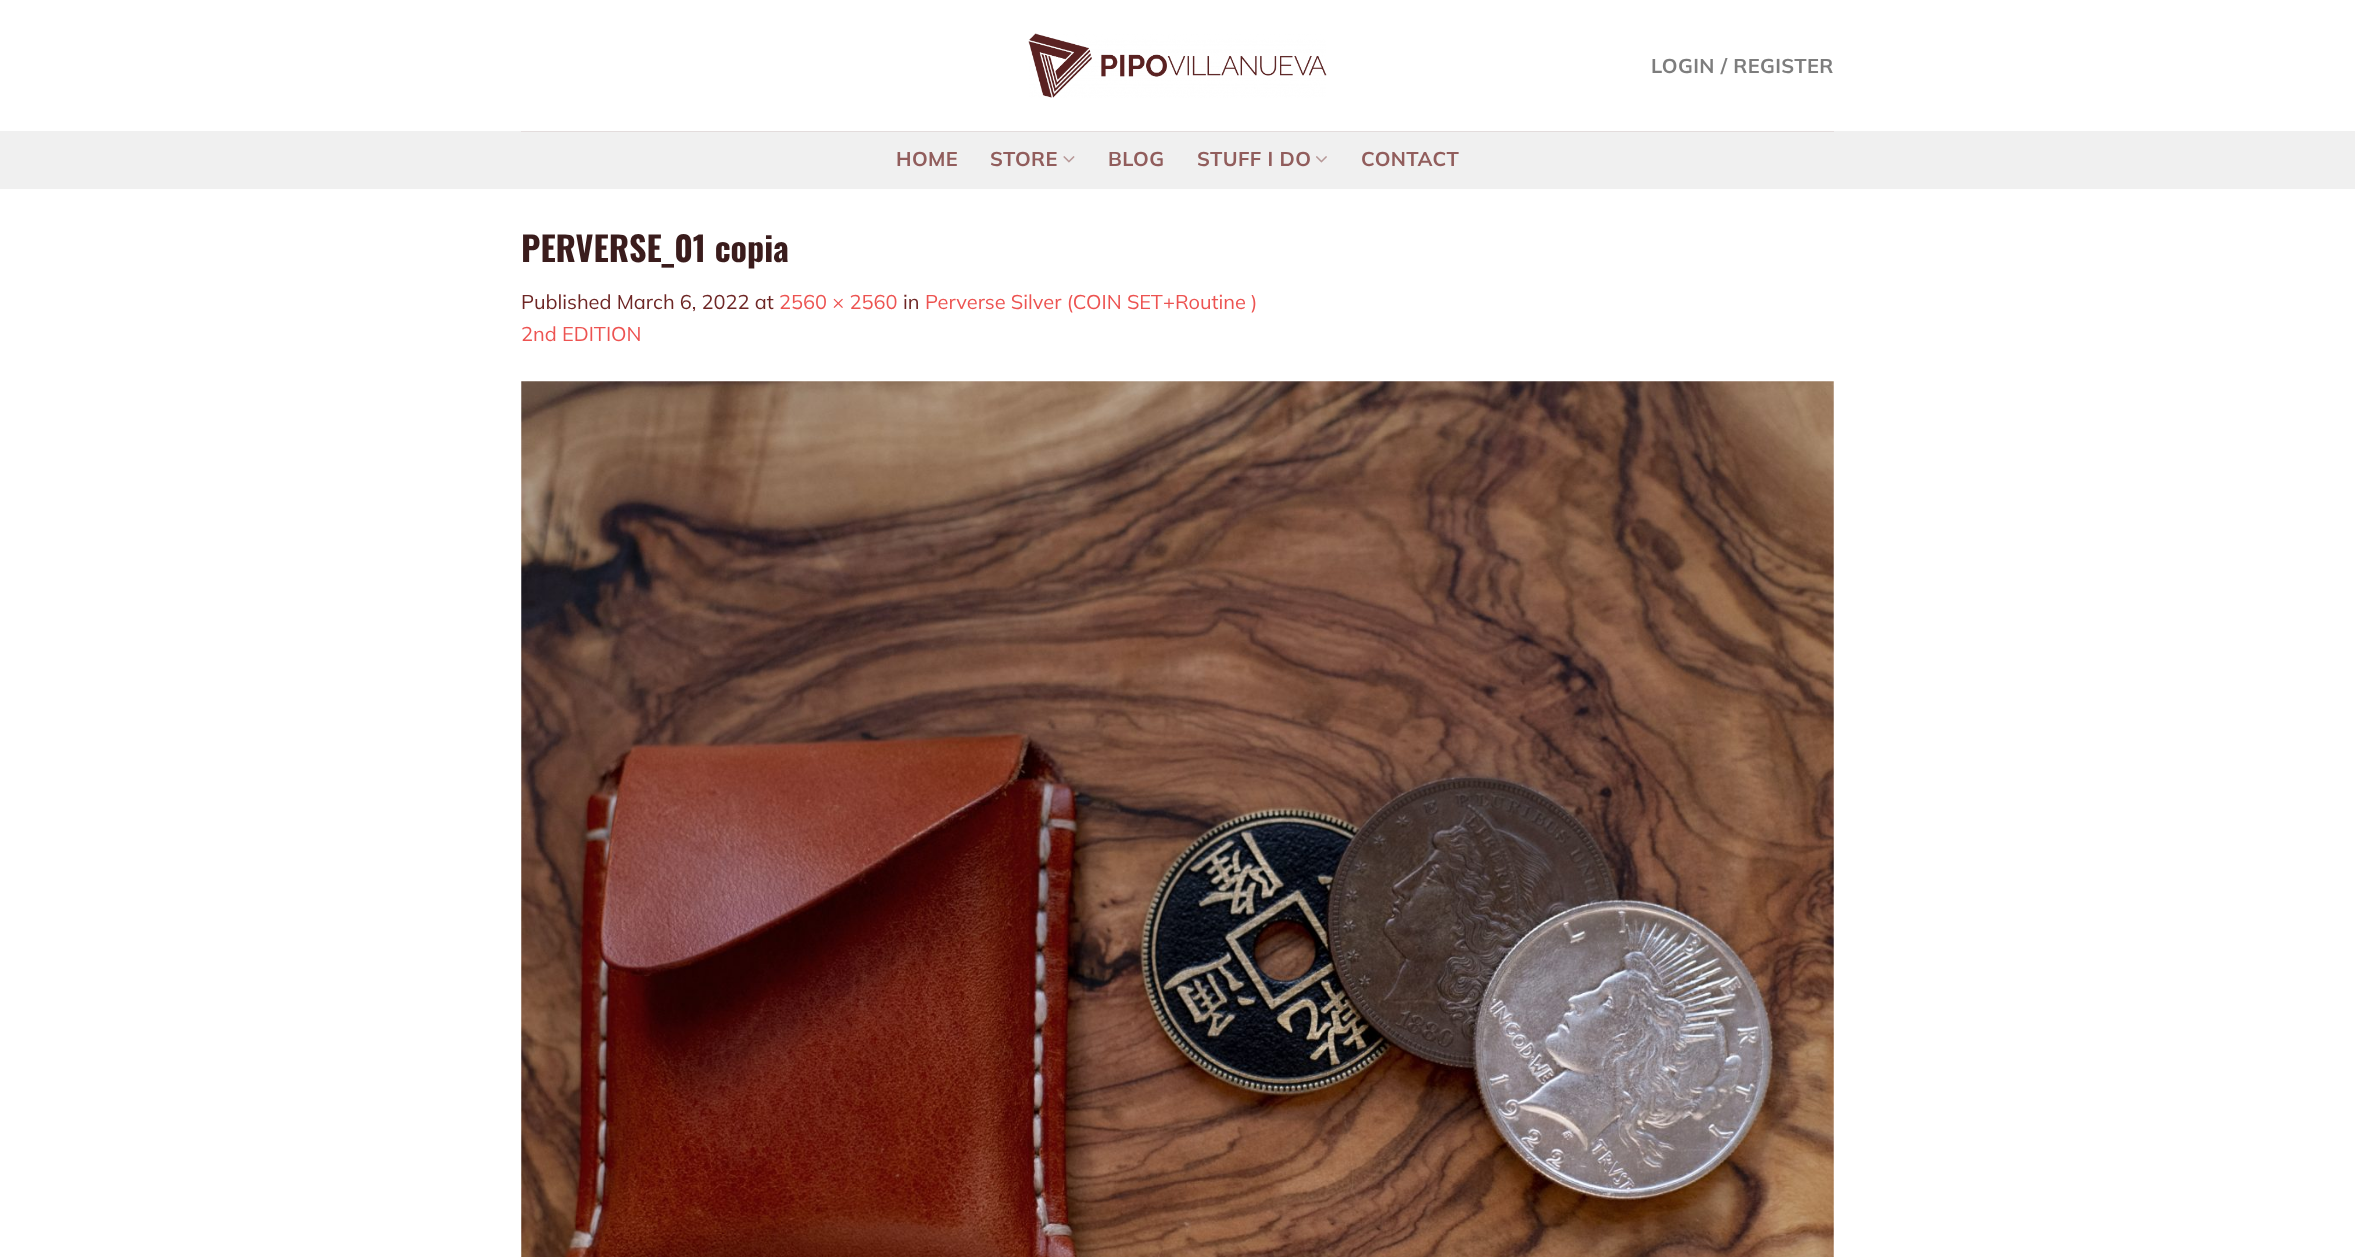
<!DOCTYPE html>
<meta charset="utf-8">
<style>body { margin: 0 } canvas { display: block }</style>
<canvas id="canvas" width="2355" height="1257"></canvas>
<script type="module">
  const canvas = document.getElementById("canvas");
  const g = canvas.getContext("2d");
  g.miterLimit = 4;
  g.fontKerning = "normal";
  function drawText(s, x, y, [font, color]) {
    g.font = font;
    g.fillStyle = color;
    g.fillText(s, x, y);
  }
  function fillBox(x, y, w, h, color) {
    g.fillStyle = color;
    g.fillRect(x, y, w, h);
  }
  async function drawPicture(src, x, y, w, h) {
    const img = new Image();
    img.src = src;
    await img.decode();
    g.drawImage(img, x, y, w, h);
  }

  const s1 = ["bold 20px Mulish", "#7D7D7D"];
  const s2 = ["bold 20px Mulish", "#915D5C"];
  const s3 = ["bold 34px Oswald", "#3A1C1C"];
  const s4 = ["20px Mulish", "#6E2625"];
  const s5 = ["20px Mulish", "#ED5351"];

  fillBox(0, 0, 2355, 1257, "#FFFFFF");
  await drawPicture("pic1.png", 1028, 33, 299, 65);
  g.letterSpacing = "0.4px";
  drawText("LOGIN / REGISTER", 1651, 73, s1);
  fillBox(0, 131, 2355, 58, "#F0F0F0");
  fillBox(521, 131, 1313, 1, "#E3DCDC");
  drawText("HOME", 896, 166, s2);
  drawText("STORE", 990, 166, s2);
  await drawPicture("pic2.png", 1063, 156, 12, 7);
  drawText("BLOG", 1108, 166, s2);
  drawText("STUFF I DO", 1197, 166, s2);
  await drawPicture("pic3.png", 1316, 156, 11, 7);
  drawText("CONTACT", 1361, 166, s2);
  g.letterSpacing = "0px";
  drawText("PERVERSE_01 copia", 521, 262, s3);
  drawText("Published March 6, 2022 at", 521, 309, s4);
  drawText("2560 × 2560", 779, 309, s5);
  drawText("in", 903, 309, s4);
  drawText("Perverse Silver (COIN SET+Routine )", 925, 309, s5);
  drawText("2nd EDITION", 521, 341, s5);
  await drawPicture("pic4.png", 521, 381, 1313, 876);
</script>
